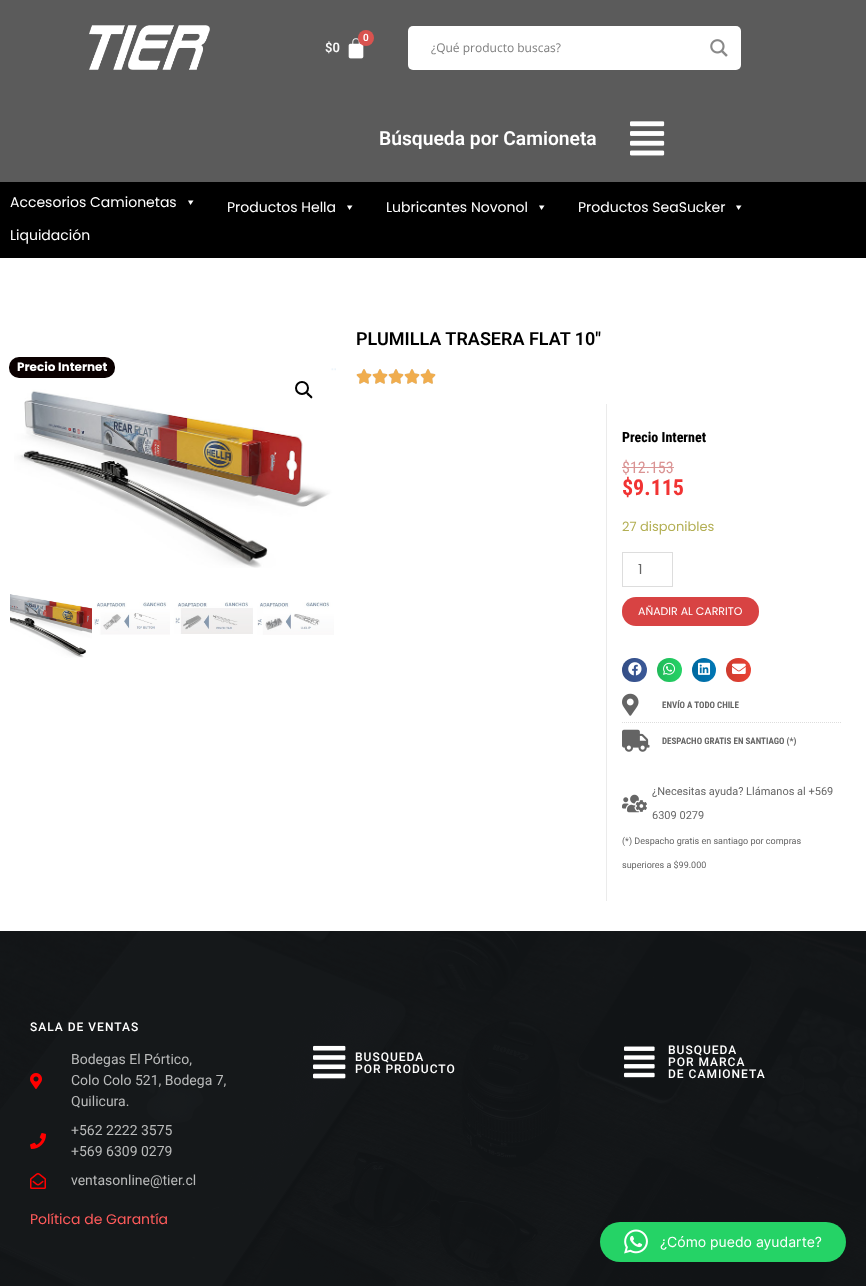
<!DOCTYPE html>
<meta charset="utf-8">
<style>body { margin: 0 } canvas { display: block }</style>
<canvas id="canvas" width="866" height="1286"></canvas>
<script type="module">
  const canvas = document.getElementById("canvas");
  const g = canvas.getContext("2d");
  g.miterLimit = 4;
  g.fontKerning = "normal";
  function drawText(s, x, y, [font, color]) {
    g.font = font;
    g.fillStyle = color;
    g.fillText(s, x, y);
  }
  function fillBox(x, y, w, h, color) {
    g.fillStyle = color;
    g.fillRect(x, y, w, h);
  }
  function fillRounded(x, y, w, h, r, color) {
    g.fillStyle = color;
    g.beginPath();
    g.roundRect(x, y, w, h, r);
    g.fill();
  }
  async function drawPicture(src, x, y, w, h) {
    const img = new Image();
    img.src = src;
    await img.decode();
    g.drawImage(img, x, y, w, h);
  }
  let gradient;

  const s1 = ["600 10px Roboto", "#FFFFFF"];
  const s2 = ["600 13px Roboto", "#F9F9F9"];
  const s3 = ["12px Open Sans", "#7D7D7D"];
  const s4 = ["600 19.25px Roboto", "#FFFFFF"];
  const s5 = ["14px Poppins", "#FFFFFF"];
  const s6 = ["bold 12px Poppins", "#FFFFFF"];
  const s7 = ["600 18px Roboto", "#000000"];
  const s8 = ["800 14px Roboto Condensed", "#000000"];
  const s9 = ["16px Roboto Condensed", "#DA9494"];
  const s10 = ["bold 22px Roboto Condensed", "#F13333"];
  const s11 = ["13px Poppins", "#B3AF54"];
  const s12 = ["14px Poppins", "#666666"];
  const s13 = ["11px Poppins", "#FFFFFF"];
  const s14 = ["bold 9px Roboto Condensed", "#666666"];
  const s15 = ["11px Roboto", "#666666"];
  const s16 = ["9px Roboto", "#666666"];
  const s17 = ["500 12px Roboto", "#FFFFFF"];
  const s18 = ["14px Roboto", "#B9BABA"];
  const s19 = ["14px Poppins", "#FF5B5B"];
  const s20 = ["14px Inter", "#FFFFFF"];

  fillBox(0, 0, 866, 1286, "#FFFFFF");
  fillBox(0, 0, 866, 182, "#5B5B5B");
  await drawPicture("pic1.png", 89, 25, 121, 45);
  await drawPicture("pic2.png", 348, 38, 16, 21);
  g.fillStyle = "#D9534F";
  g.beginPath();
  g.arc(366, 38, 8, 0, Math.PI * 2);
  g.fill();
  drawText("0", 363, 41, s1);
  drawText("$0", 325, 52, s2);
  fillRounded(408, 26, 333, 44, 5, "#FFFFFF");
  drawText("¿Qué producto buscas?", 431, 52, s3);
  await drawPicture("pic3.png", 710, 39, 18, 18);
  drawText("Búsqueda por Camioneta", 379, 145, s4);
  await drawPicture("pic4.png", 630, 121, 35, 35);
  fillBox(0, 182, 866, 76, "#000000");
  drawText("Accesorios Camionetas", 10, 207, s5);
  g.beginPath();
  g.moveTo(193.5, 200.5);
  g.lineTo(190.5, 205);
  g.lineTo(188, 200.5);
  g.closePath();
  g.fill();
  drawText("Productos Hella", 227, 212, s5);
  g.beginPath();
  g.moveTo(352.5, 205.5);
  g.lineTo(349.5, 210);
  g.lineTo(347, 205.5);
  g.closePath();
  g.fill();
  drawText("Lubricantes Novonol", 386, 212, s5);
  g.beginPath();
  g.moveTo(544.5, 205.5);
  g.lineTo(541.5, 210);
  g.lineTo(539, 205.5);
  g.closePath();
  g.fill();
  drawText("Productos SeaSucker", 578, 212, s5);
  g.beginPath();
  g.moveTo(741.5, 205.5);
  g.lineTo(738.5, 210);
  g.lineTo(736, 205.5);
  g.closePath();
  g.fill();
  drawText("Liquidación", 10, 240, s5);
  await drawPicture("pic5.png", 14, 368, 322, 200);
  fillRounded(9, 357, 106, 21, 10, "#0A0000");
  drawText("Precio Internet", 17, 371, s6);
  g.beginPath();
  g.arc(302, 388, 6, 0, Math.PI * 2);
  g.strokeStyle = "#000000";
  g.lineWidth = 2;
  g.stroke();
  g.fillStyle = "#000000";
  g.beginPath();
  g.moveTo(306.5, 392.5);
  g.bezierCurveTo(308, 391.5, 309.5, 394, 310, 394.5);
  g.bezierCurveTo(310.5, 395, 313.5, 397, 312, 398);
  g.bezierCurveTo(311, 399.5, 309.5, 396.5, 308.5, 396);
  g.bezierCurveTo(308, 395.5, 305.5, 393.5, 306.5, 392.5);
  g.closePath();
  g.fill();
  await drawPicture("pic6.png", 10, 594, 82, 64);
  await drawPicture("pic7.png", 94, 602, 76, 33);
  await drawPicture("pic8.png", 173, 602, 80, 32);
  await drawPicture("pic9.png", 257, 602, 77, 33);
  drawText("PLUMILLA TRASERA FLAT 10″", 356, 345, s7);
  await drawPicture("pic10.png", 356, 369, 16, 15);
  await drawPicture("pic11.png", 356, 369, 16, 15);
  await drawPicture("pic10.png", 372, 369, 16, 15);
  await drawPicture("pic11.png", 372, 369, 16, 15);
  await drawPicture("pic10.png", 388, 369, 16, 15);
  await drawPicture("pic11.png", 388, 369, 16, 15);
  await drawPicture("pic10.png", 404, 369, 16, 15);
  await drawPicture("pic11.png", 404, 369, 16, 15);
  await drawPicture("pic10.png", 420, 369, 16, 15);
  await drawPicture("pic11.png", 420, 369, 16, 15);
  fillBox(606, 404, 1, 497, "#EBEBEB");
  drawText("Precio Internet", 622, 442, s8);
  drawText("$12.153", 622, 473, s9);
  fillBox(622, 467, 52, 1, "#DA9494");
  drawText("$9.115", 622, 495, s10);
  drawText("27 disponibles", 622, 531, s11);
  g.strokeStyle = "#DDDDDD";
  g.lineWidth = 1;
  g.strokeRect(622.5, 552.5, 50, 34);
  drawText("1", 638, 574, s12);
  fillRounded(622, 597, 137, 29, 14, "#D84343");
  drawText("AÑADIR AL CARRITO", 638, 615, s13);
  fillRounded(622, 658, 25, 24, 12, "#3B5998");
  gradient = g.createLinearGradient(622, 670, 647, 670);
  gradient.addColorStop(0, "rgba(0, 0, 0, 0.12)");
  gradient.addColorStop(1, "rgba(0, 0, 0, 0)");
  g.fillStyle = gradient;
  g.beginPath();
  g.roundRect(622, 658, 25, 24, 12);
  g.fill();
  await drawPicture("pic12.png", 628, 662, 14, 14);
  fillRounded(657, 658, 25, 24, 12, "#25D366");
  gradient = g.createLinearGradient(657, 670, 682, 670);
  gradient.addColorStop(0, "rgba(0, 0, 0, 0.12)");
  gradient.addColorStop(1, "rgba(0, 0, 0, 0)");
  g.fillStyle = gradient;
  g.beginPath();
  g.roundRect(657, 658, 25, 24, 12);
  g.fill();
  await drawPicture("pic13.png", 663, 662, 12, 13);
  g.fillStyle = "#0077B5";
  g.beginPath();
  g.arc(704, 670, 12, 0, Math.PI * 2);
  g.fill();
  gradient = g.createLinearGradient(692, 670, 716, 670);
  gradient.addColorStop(0, "rgba(0, 0, 0, 0.12)");
  gradient.addColorStop(1, "rgba(0, 0, 0, 0)");
  g.fillStyle = gradient;
  g.beginPath();
  g.arc(704, 670, 12, 0, Math.PI * 2);
  g.fill();
  await drawPicture("pic14.png", 698, 662, 13, 13);
  fillRounded(726, 658, 25, 24, 12, "#EA4335");
  gradient = g.createLinearGradient(726, 670, 751, 670);
  gradient.addColorStop(0, "rgba(0, 0, 0, 0.12)");
  gradient.addColorStop(1, "rgba(0, 0, 0, 0)");
  g.fillStyle = gradient;
  g.beginPath();
  g.roundRect(726, 658, 25, 24, 12);
  g.fill();
  await drawPicture("pic15.png", 732, 663, 14, 11);
  await drawPicture("pic16.png", 622, 693, 17, 23);
  drawText("ENVÍO A TODO CHILE", 662, 708, s14);
  g.beginPath();
  g.moveTo(622, 722.5);
  g.lineTo(841, 722.5);
  g.setLineDash([1, 1]);
  g.stroke();
  await drawPicture("pic17.png", 622, 729, 28, 23);
  drawText("DESPACHO GRATIS EN SANTIAGO (*)", 662, 744, s14);
  await drawPicture("pic18.png", 622, 794, 25, 19);
  drawText("¿Necesitas ayuda? Llámanos al +569", 652, 795, s15);
  drawText("6309 0279", 652, 819, s15);
  drawText("(*) Despacho gratis en santiago por compras", 622, 844, s16);
  drawText("superiores a $99.000", 622, 868, s16);
  await drawPicture("pic19.png", 0, 931, 866, 355);
  g.letterSpacing = "1px";
  drawText("SALA DE VENTAS", 30, 1031, s17);
  await drawPicture("pic20.png", 30, 1073, 12, 16);
  g.letterSpacing = "0px";
  drawText("Bodegas El Pórtico,", 71, 1064, s18);
  drawText("Colo Colo 521, Bodega 7,", 71, 1085, s18);
  drawText("Quilicura.", 71, 1106, s18);
  await drawPicture("pic21.png", 30, 1133, 16, 16);
  drawText("+562 2222 3575", 71, 1135, s18);
  drawText("+569 6309 0279", 71, 1156, s18);
  await drawPicture("pic22.png", 30, 1173, 16, 16);
  drawText("ventasonline@tier.cl", 71, 1185, s18);
  drawText("Política de Garantía", 30, 1224, s19);
  await drawPicture("pic23.png", 313, 1045, 33, 34);
  g.letterSpacing = "1px";
  drawText("BUSQUEDA", 355, 1061, s17);
  drawText("POR PRODUCTO", 355, 1073, s17);
  await drawPicture("pic24.png", 624, 1046, 31, 32);
  drawText("BUSQUEDA", 668, 1054, s17);
  drawText("POR MARCA", 668, 1066, s17);
  drawText("DE CAMIONETA", 668, 1078, s17);
  fillRounded(600, 1222, 246, 40, 20, "#25D366");
  await drawPicture("pic25.png", 624, 1229, 24, 25);
  g.letterSpacing = "0px";
  drawText("¿Cómo puedo ayudarte?", 660, 1247, s20);
</script>
